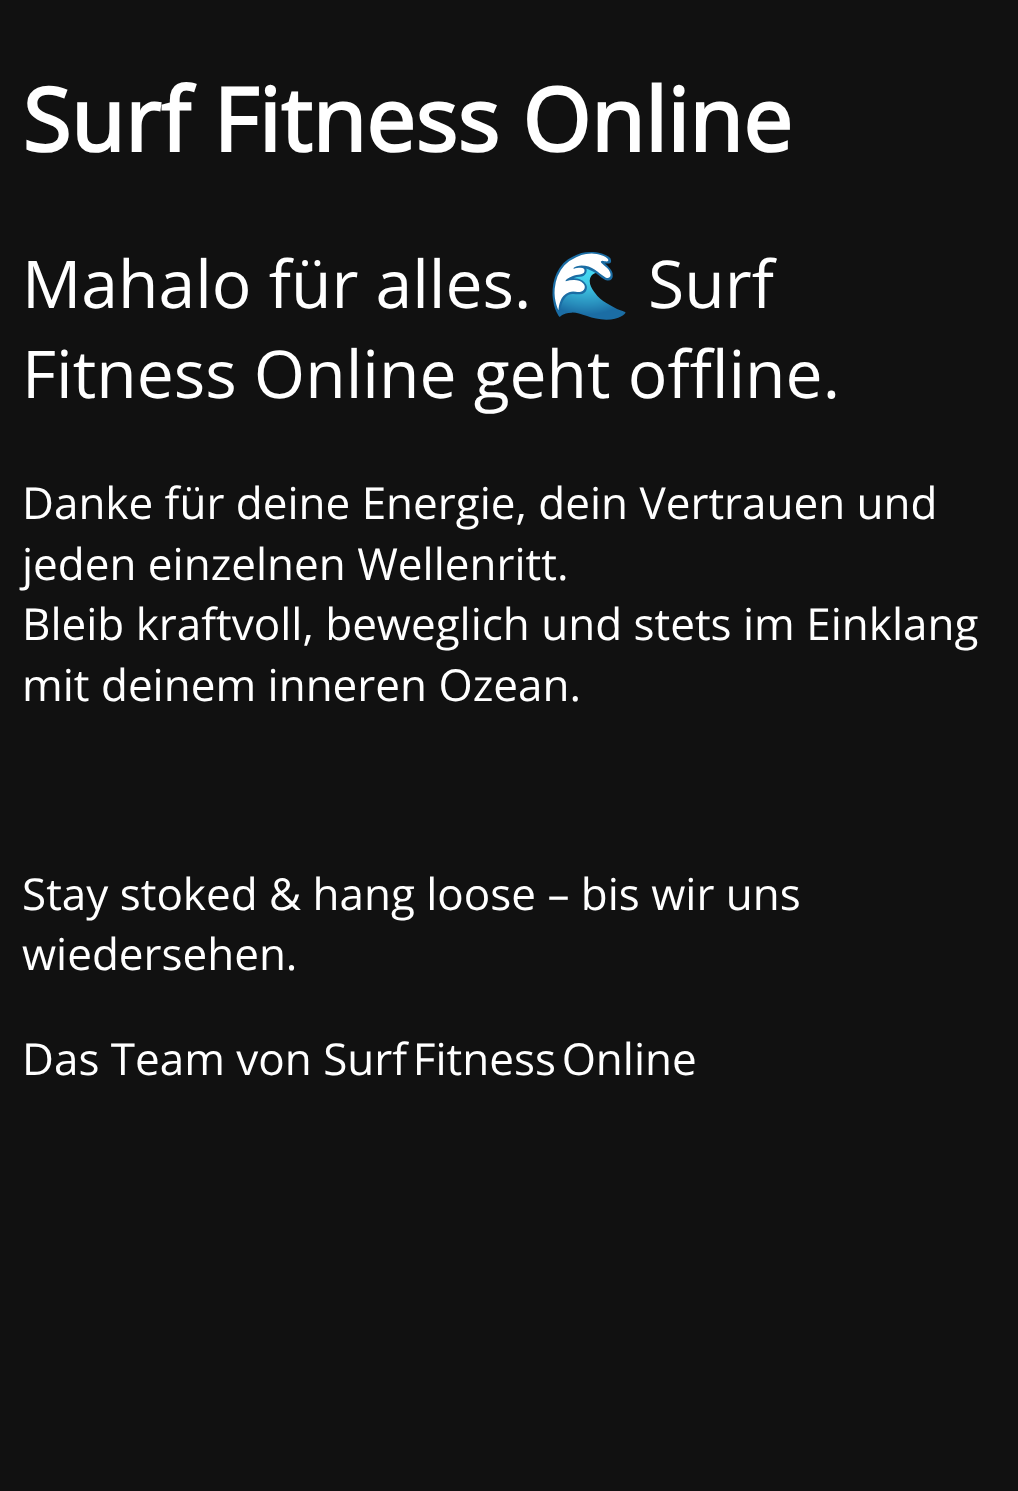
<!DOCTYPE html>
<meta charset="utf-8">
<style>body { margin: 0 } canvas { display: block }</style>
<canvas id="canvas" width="1018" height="1491"></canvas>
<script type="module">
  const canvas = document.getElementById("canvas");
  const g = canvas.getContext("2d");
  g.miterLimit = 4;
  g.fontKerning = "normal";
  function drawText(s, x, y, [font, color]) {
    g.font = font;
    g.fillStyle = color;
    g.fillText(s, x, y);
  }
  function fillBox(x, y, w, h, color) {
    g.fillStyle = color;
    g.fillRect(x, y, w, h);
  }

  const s1 = ["bold 88px Open Sans", "#FFFFFF"];
  const s2 = ["66px Open Sans", "#FFFFFF"];
  const s3 = ["66px Noto Color Emoji", "#FFFFFF"];
  const s4 = ["44px Open Sans", "#FFFFFF"];

  fillBox(0, 0, 1018, 1491, "#111111");
  drawText("Surf Fitness Online", 22, 152, s1);
  drawText("Mahalo für alles.", 22, 308, s2);
  drawText("🌊", 548, 308, s3);
  drawText("Surf", 648, 308, s2);
  drawText("Fitness Online geht offline.", 22, 398, s2);
  drawText("Danke für deine Energie, dein Vertrauen und", 22, 519, s4);
  drawText("jeden einzelnen Wellenritt.", 22, 580, s4);
  drawText("Bleib kraftvoll, beweglich und stets im Einklang", 22, 640, s4);
  drawText("mit deinem inneren Ozean.", 22, 701, s4);
  drawText("Stay stoked & hang loose – bis wir uns", 22, 910, s4);
  drawText("wiedersehen.", 22, 970, s4);
  drawText("Das Team von Surf Fitness Online", 22, 1075, s4);
</script>
